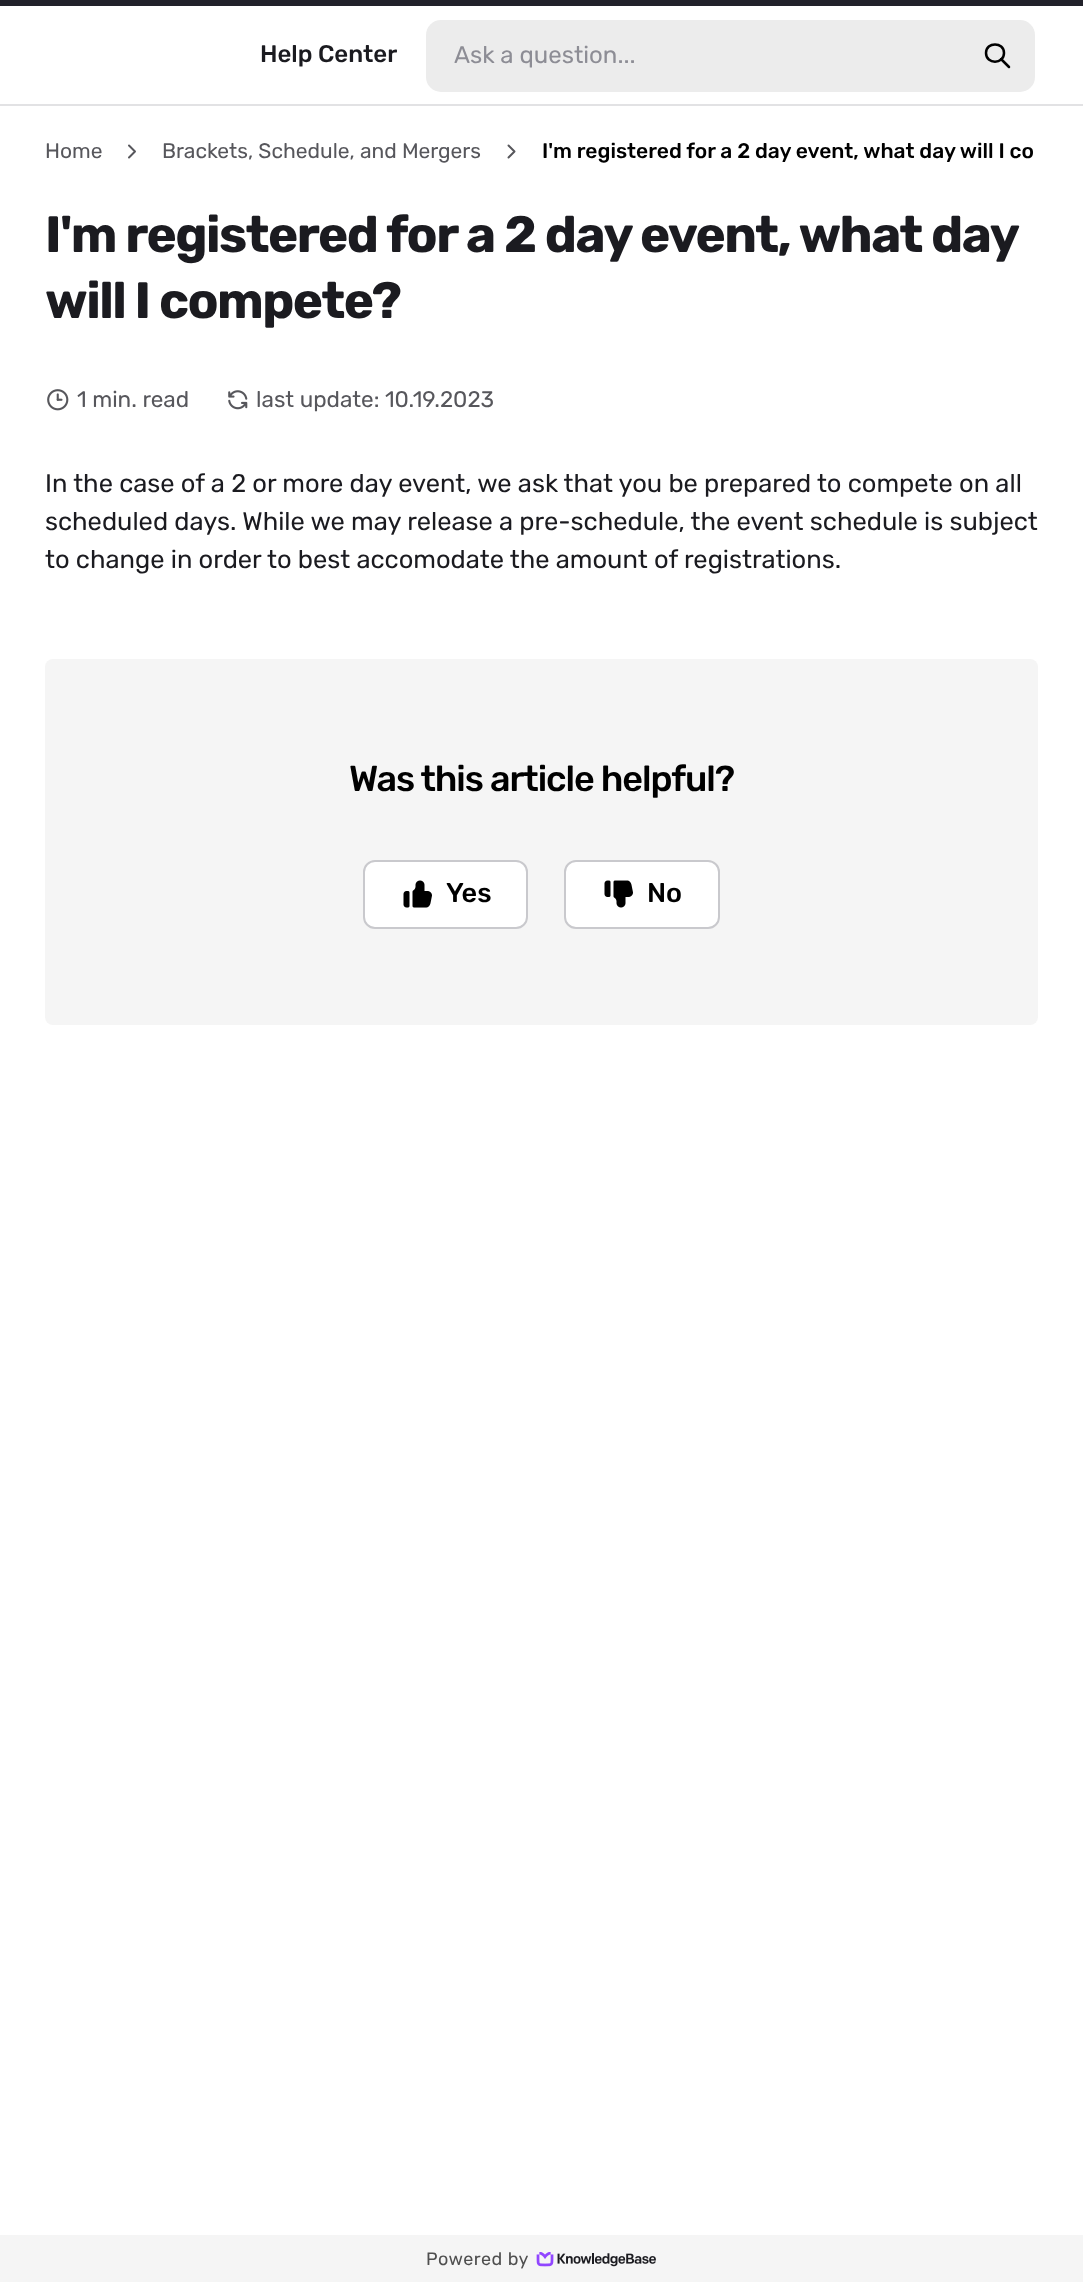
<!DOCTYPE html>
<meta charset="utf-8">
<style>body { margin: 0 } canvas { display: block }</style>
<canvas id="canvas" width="1083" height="2282"></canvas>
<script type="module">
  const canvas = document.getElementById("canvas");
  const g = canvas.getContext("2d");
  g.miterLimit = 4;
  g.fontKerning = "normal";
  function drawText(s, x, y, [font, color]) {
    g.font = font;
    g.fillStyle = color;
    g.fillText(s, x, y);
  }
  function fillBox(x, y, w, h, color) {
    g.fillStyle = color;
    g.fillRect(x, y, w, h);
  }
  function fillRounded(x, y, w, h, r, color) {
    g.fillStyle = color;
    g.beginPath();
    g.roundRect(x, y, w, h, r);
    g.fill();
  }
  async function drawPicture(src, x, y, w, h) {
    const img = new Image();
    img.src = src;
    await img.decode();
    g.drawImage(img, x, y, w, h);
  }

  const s1 = ["500 24px Rubik", "#1B1B20"];
  const s2 = ["24px Rubik", "#8D8D95"];
  const s3 = ["21px Rubik", "#57575C"];
  const s4 = ["500 21px Rubik", "#000000"];
  const s5 = ["bold 51px Rubik", "#1B1B20"];
  const s6 = ["22.5px Rubik", "#57575C"];
  const s7 = ["25.5px Rubik", "#1B1B20"];
  const s8 = ["500 36px Rubik", "#000000"];
  const s9 = ["500 27px Rubik", "#000000"];
  const s10 = ["18px Rubik", "#4F4F4F"];

  fillBox(0, 0, 1083, 2282, "#FFFFFF");
  fillBox(0, 0, 1083, 6, "#21212A");
  fillBox(0, 104, 1083, 2, "#E2E2E4");
  drawText("Help Center", 260, 62, s1);
  fillRounded(426, 20, 609, 72, 15, "#ECECEC");
  drawText("Ask a question...", 454, 63, s2);
  g.beginPath();
  g.moveTo(986, 53);
  g.bezierCurveTo(986, 64.5, 1004, 64.5, 1004, 53);
  g.bezierCurveTo(1004, 41.5, 986, 41.5, 986, 53);
  g.moveTo(1009, 67);
  g.lineTo(1001, 59);
  g.strokeStyle = "#000000";
  g.lineWidth = 2.5;
  g.lineCap = "round";
  g.lineJoin = "round";
  g.stroke();
  drawText("Home", 45, 158, s3);
  g.beginPath();
  g.moveTo(129, 145.5);
  g.lineTo(135, 151.5);
  g.lineTo(129, 157.5);
  g.strokeStyle = "#57575C";
  g.lineWidth = 2;
  g.stroke();
  drawText("Brackets, Schedule, and Mergers", 162, 158, s3);
  g.beginPath();
  g.moveTo(508.5, 145.5);
  g.lineTo(514.5, 151.5);
  g.lineTo(508.5, 157.5);
  g.stroke();
  drawText("I'm registered for a 2 day event, what day will I co", 542, 158, s4);
  g.letterSpacing = "-1.55px";
  drawText("I'm registered for a 2 day event, what day", 45, 252, s5);
  drawText("will I compete?", 45, 318, s5);
  await drawPicture("pic1.png", 47, 389, 22, 22);
  g.letterSpacing = "0px";
  drawText("1 min. read", 77, 407, s6);
  await drawPicture("pic2.png", 228, 390, 20, 20);
  drawText("last update: 10.19.2023", 256, 407, s6);
  drawText("In the case of a 2 or more day event, we ask that you be prepared to compete on all", 45, 492, s7);
  drawText("scheduled days. While we may release a pre-schedule, the event schedule is subject", 45, 530, s7);
  drawText("to change in order to best accomodate the amount of registrations.", 45, 568, s7);
  fillRounded(45, 659, 993, 366, 8, "#F5F5F5");
  g.letterSpacing = "-1.1px";
  drawText("Was this article helpful?", 349, 791, s8);
  g.fillStyle = "#FFFFFF";
  g.beginPath();
  g.roundRect(364, 861, 163, 67, 11);
  g.fill();
  g.strokeStyle = "#C9C9CD";
  g.lineJoin = "miter";
  g.stroke();
  await drawPicture("pic3.png", 403, 880, 29, 28);
  g.letterSpacing = "0px";
  drawText("Yes", 446, 902, s9);
  g.fillStyle = "#FFFFFF";
  g.beginPath();
  g.roundRect(565, 861, 154, 67, 11);
  g.fill();
  g.stroke();
  await drawPicture("pic4.png", 604, 880, 29, 28);
  drawText("No", 647, 902, s9);
  fillBox(0, 2235, 1083, 47, "#F5F5F5");
  g.letterSpacing = "0.5px";
  drawText("Powered by", 426, 2265, s10);
  await drawPicture("pic5.png", 536, 2252, 120, 15);
</script>
